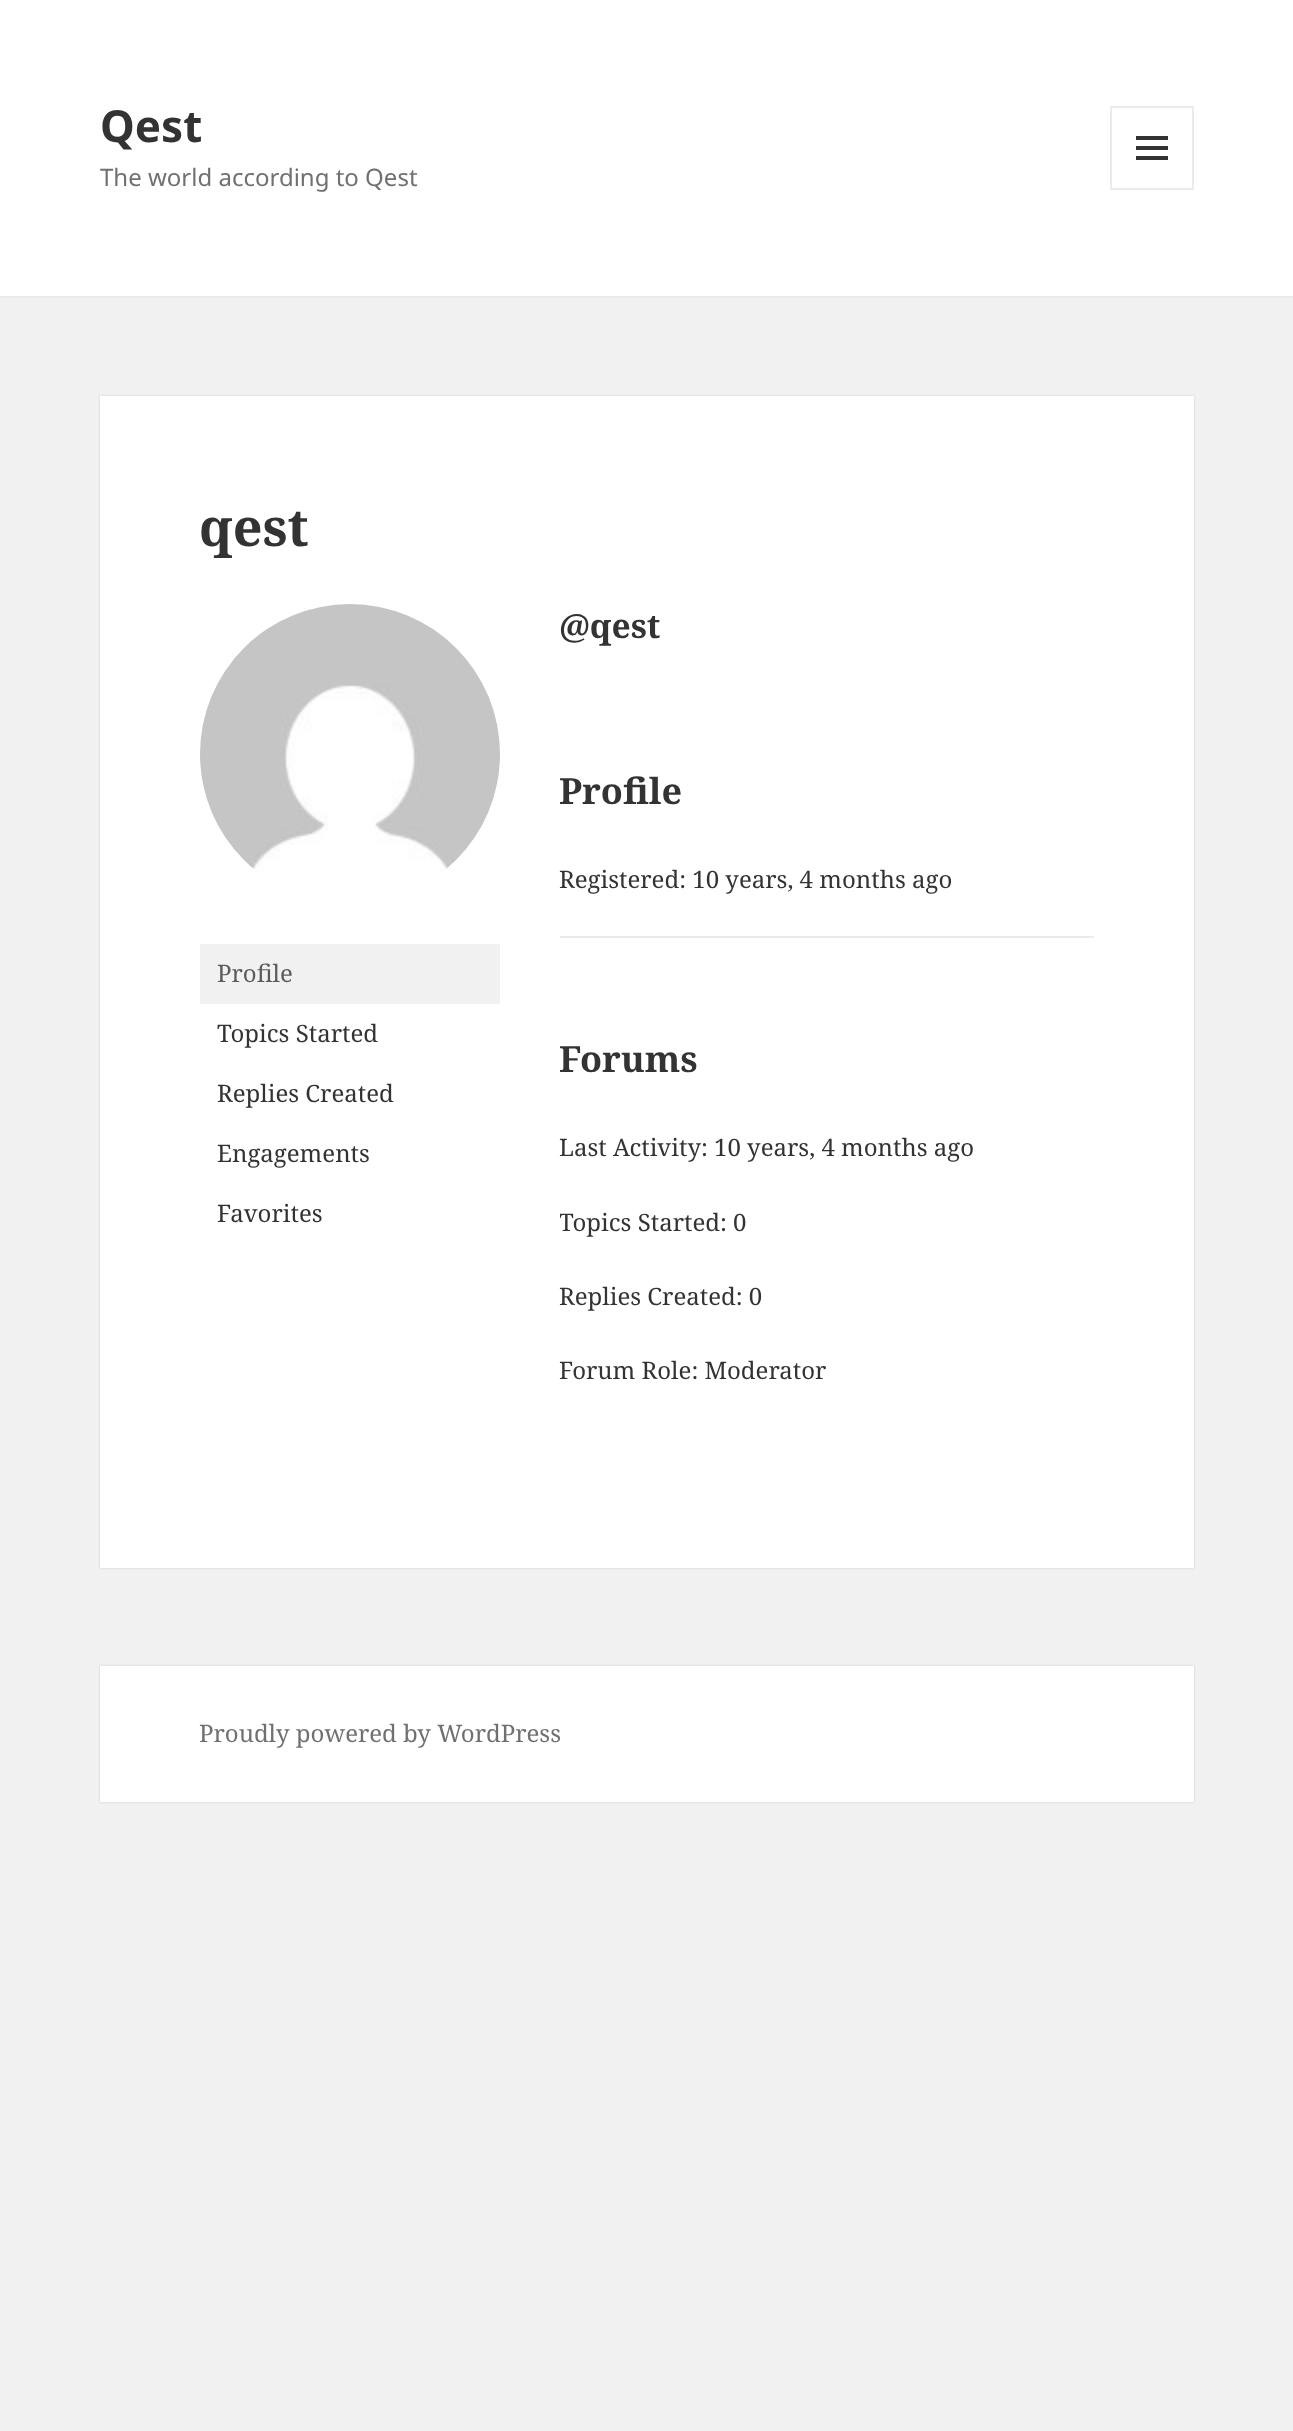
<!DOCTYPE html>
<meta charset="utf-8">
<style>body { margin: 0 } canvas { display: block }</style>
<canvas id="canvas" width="1293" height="2431"></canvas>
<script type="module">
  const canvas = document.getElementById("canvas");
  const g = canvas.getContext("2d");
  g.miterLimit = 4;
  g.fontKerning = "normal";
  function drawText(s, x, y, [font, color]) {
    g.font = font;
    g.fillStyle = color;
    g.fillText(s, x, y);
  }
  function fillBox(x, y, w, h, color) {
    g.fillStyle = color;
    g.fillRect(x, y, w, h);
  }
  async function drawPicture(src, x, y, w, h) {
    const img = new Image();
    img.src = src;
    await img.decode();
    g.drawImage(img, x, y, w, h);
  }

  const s1 = ["bold 44px Noto Sans", "#333333"];
  const s2 = ["24px Noto Sans", "#707070"];
  const s3 = ["bold 52px Noto Serif", "#333333"];
  const s4 = ["24px Noto Serif", "#5C5C5C"];
  const s5 = ["24px Noto Serif", "#333333"];
  const s6 = ["bold 33.5px Noto Serif", "#333333"];
  const s7 = ["bold 36px Noto Serif", "#333333"];
  const s8 = ["24px Noto Serif", "#707070"];

  fillBox(0, 0, 1293, 2431, "#F1F1F1");
  fillBox(0, 0, 1293, 296, "#FFFFFF");
  fillBox(0, 296, 1293, 2, "#EBEBEB");
  drawText("Qest", 100, 142, s1);
  g.strokeStyle = "#EBEBEB";
  g.lineWidth = 2;
  g.strokeRect(1111, 107, 82, 82);
  await drawPicture("pic1.png", 1136, 136, 32, 24);
  drawText("The world according to Qest", 100, 186, s2);
  g.fillStyle = "rgba(0, 0, 0, 0.15)";
  g.filter = "blur(1px)";
  g.beginPath();
  g.rect(100, 396, 1094, 1172);
  g.fill();
  g.filter = "none";
  fillBox(100, 396, 1094, 1172, "#FFFFFF");
  drawText("qest", 199, 546, s3);
  await drawPicture("pic2.png", 200, 604, 300, 268);
  fillBox(200, 944, 300, 60, "#F1F1F1");
  drawText("Profile", 217, 982, s4);
  drawText("Topics Started", 217, 1042, s5);
  drawText("Replies Created", 217, 1102, s5);
  drawText("Engagements", 217, 1162, s5);
  drawText("Favorites", 217, 1222, s5);
  drawText("@qest", 559, 638, s6);
  drawText("Profile", 559, 804, s7);
  drawText("Registered: 10 years, 4 months ago", 559, 888, s5);
  fillBox(560, 936, 534, 2, "#EBEBEB");
  drawText("Forums", 559, 1072, s7);
  drawText("Last Activity: 10 years, 4 months ago", 559, 1156, s5);
  g.save();
  g.beginPath();
  g.rect(560, 670, 534, 758);
  g.clip();
  drawText("Topics Started: 0", 559, 1231, s5);
  g.restore();
  drawText("Replies Created: 0", 559, 1305, s5);
  drawText("Forum Role: Moderator", 559, 1379, s5);
  g.fillStyle = "rgba(0, 0, 0, 0.15)";
  g.filter = "blur(1px)";
  g.beginPath();
  g.rect(100, 1666, 1094, 136);
  g.fill();
  g.filter = "none";
  fillBox(100, 1666, 1094, 136, "#FFFFFF");
  drawText("Proudly powered by WordPress", 199, 1742, s8);
</script>
